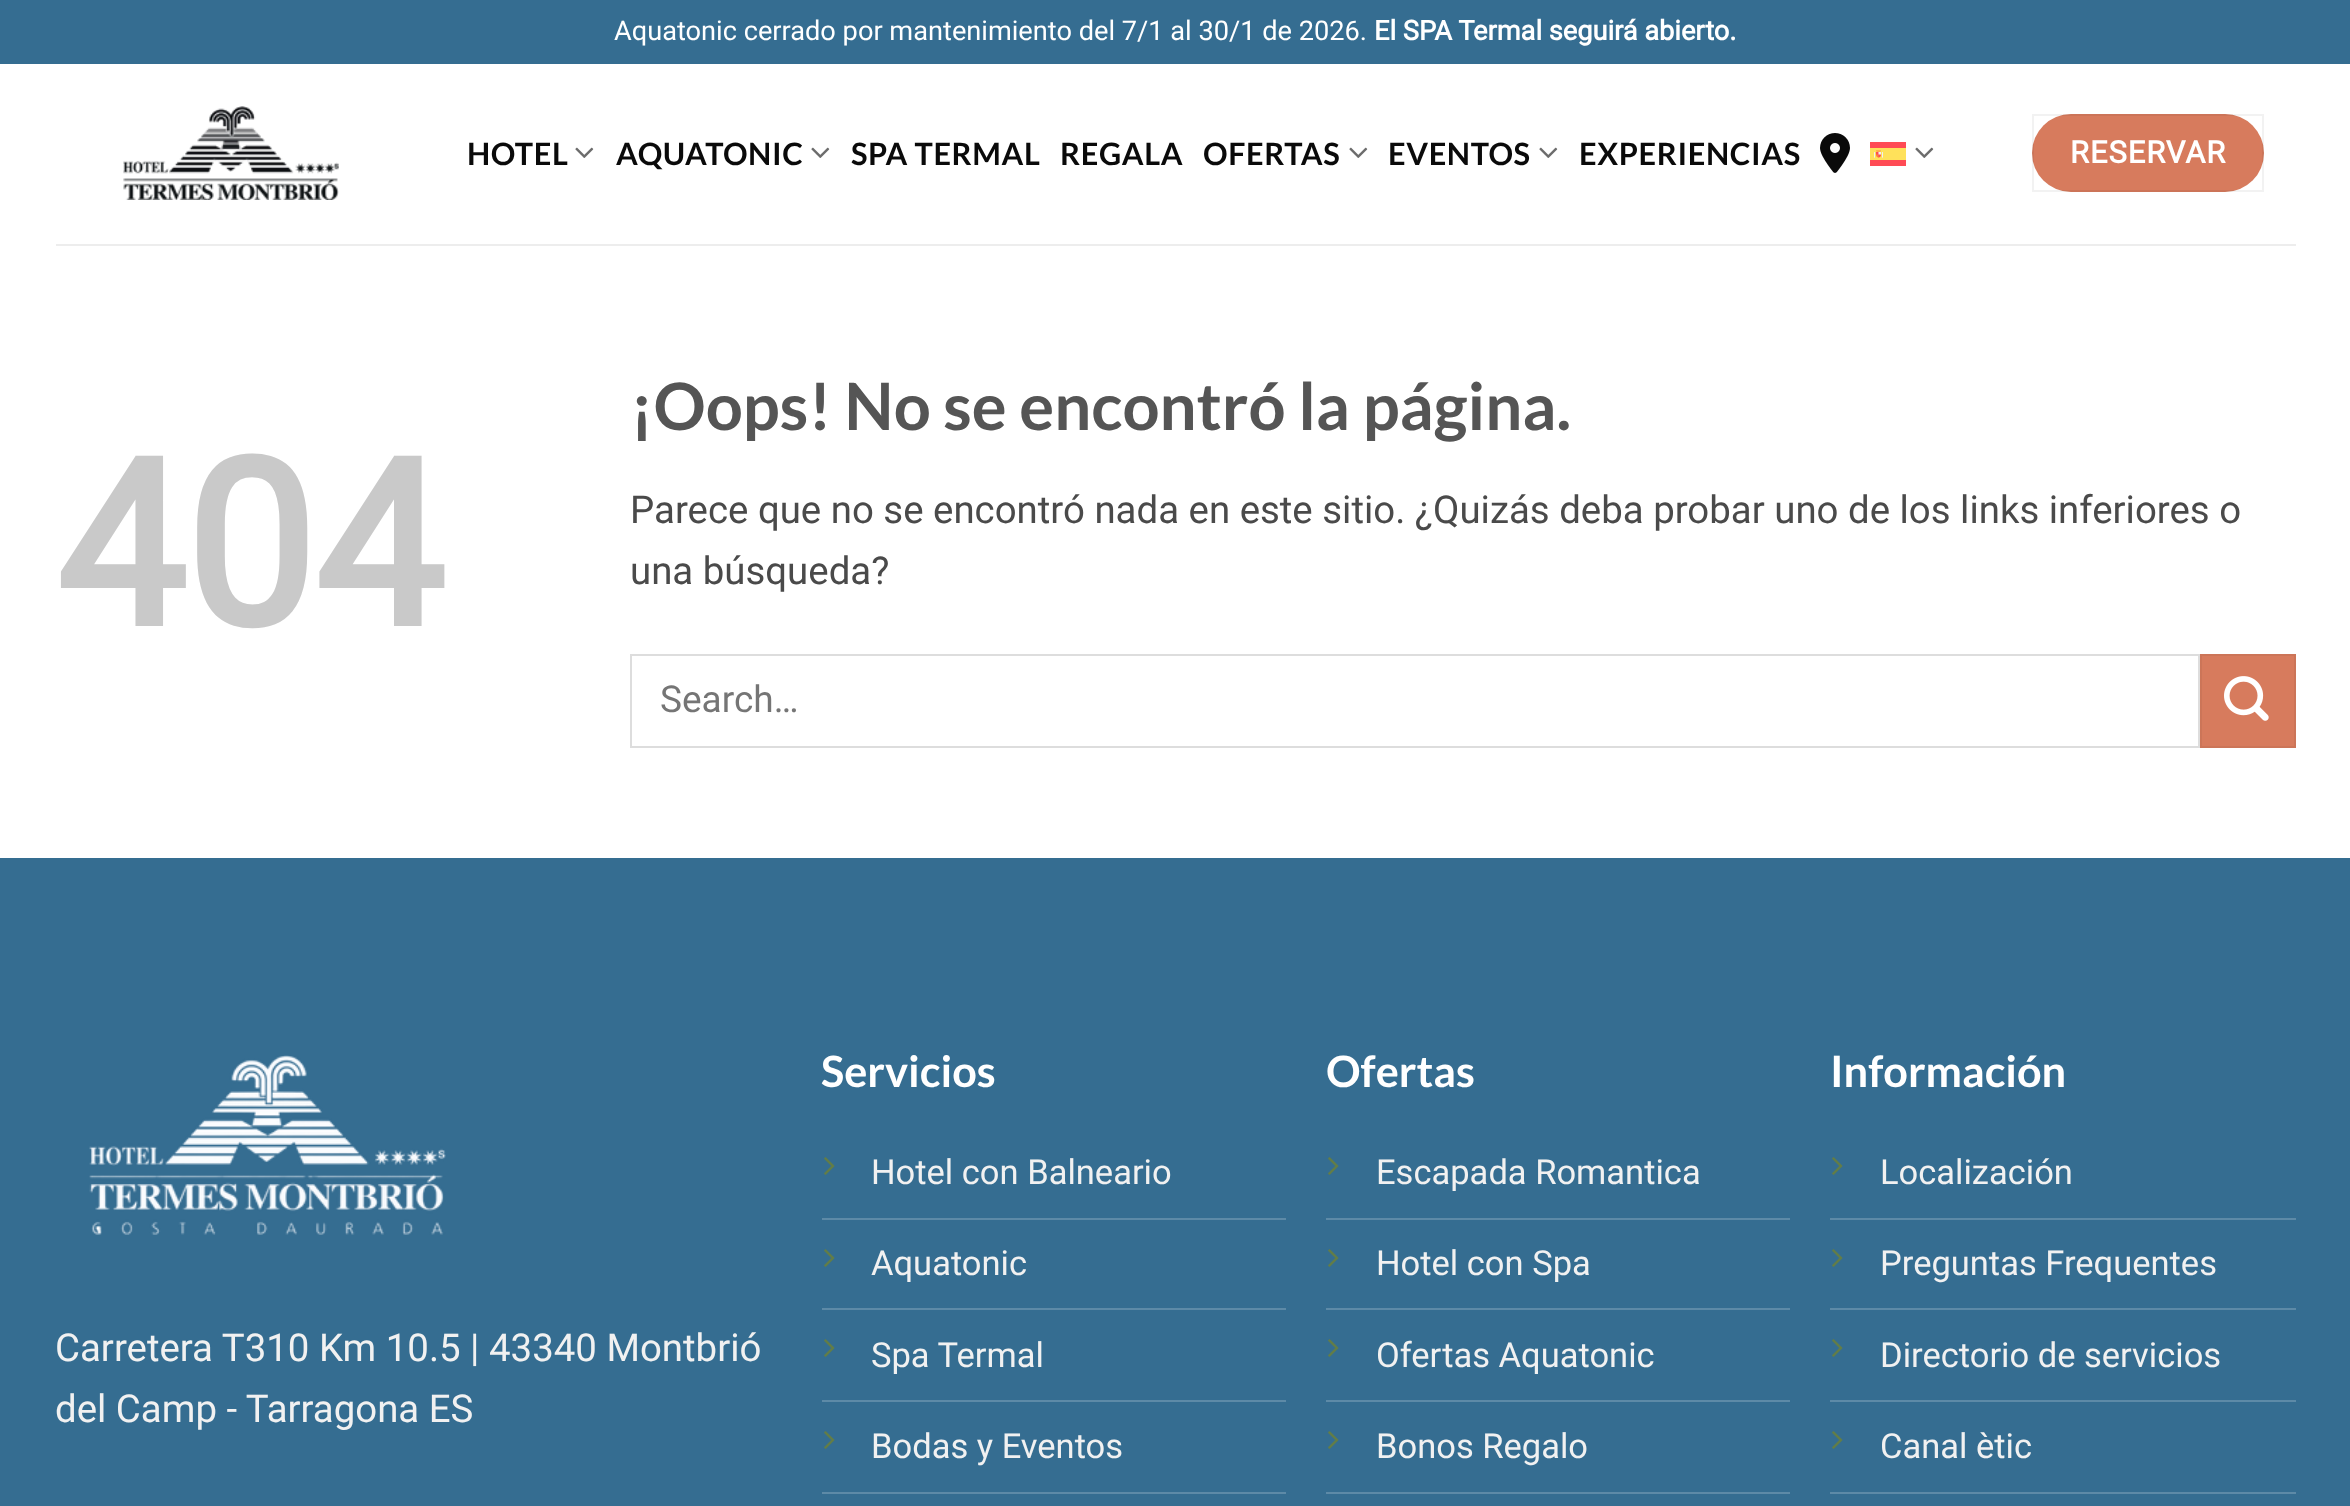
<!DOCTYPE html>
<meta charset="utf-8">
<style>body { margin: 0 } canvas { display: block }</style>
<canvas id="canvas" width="2350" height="1506"></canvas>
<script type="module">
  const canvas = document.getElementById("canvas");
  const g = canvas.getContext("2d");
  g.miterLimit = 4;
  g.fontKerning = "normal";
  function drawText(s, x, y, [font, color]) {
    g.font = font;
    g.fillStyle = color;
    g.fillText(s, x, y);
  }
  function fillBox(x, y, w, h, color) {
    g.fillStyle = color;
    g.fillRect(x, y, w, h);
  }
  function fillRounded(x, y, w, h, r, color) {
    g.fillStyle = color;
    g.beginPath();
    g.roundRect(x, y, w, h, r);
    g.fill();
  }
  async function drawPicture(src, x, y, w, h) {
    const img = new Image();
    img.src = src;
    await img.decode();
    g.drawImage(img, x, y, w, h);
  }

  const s1 = ["27.2px Roboto", "#FFFFFF"];
  const s2 = ["bold 27.2px Roboto", "#FFFFFF"];
  const s3 = ["bold 30.75px Lato", "#0A0A0A"];
  const s4 = ["bold 30.75px Roboto", "#FFFFFF"];
  const s5 = ["bold 230px Roboto", "#C9C9C9"];
  const s6 = ["bold 65.25px Lato", "#555555"];
  const s7 = ["38.4px Roboto", "#4A4A4A"];
  const s8 = ["37px Roboto", "#757575"];
  const s9 = ["38.4px Roboto", "#F1F1F1"];
  const s10 = ["bold 43.25px Lato", "#FFFFFF"];
  const s11 = ["34.5px Roboto", "#F1F1F1"];

  fillBox(0, 0, 2350, 1506, "#FFFFFF");
  fillBox(0, 0, 2350, 64, "#356D91");
  drawText("Aquatonic cerrado por mantenimiento del 7/1 al 30/1 de 2026.", 614, 40, s1);
  drawText("El SPA Termal seguirá abierto.", 1374, 40, s2);
  await drawPicture("pic1.png", 123, 106, 216, 94);
  g.letterSpacing = "0.6px";
  drawText("HOTEL", 467, 165, s3);
  await drawPicture("pic2.png", 575, 147, 19, 11);
  drawText("AQUATONIC", 616, 165, s3);
  await drawPicture("pic2.png", 811, 147, 19, 11);
  drawText("SPA TERMAL", 851, 165, s3);
  drawText("REGALA", 1060, 165, s3);
  drawText("OFERTAS", 1203, 165, s3);
  await drawPicture("pic2.png", 1349, 147, 19, 11);
  drawText("EVENTOS", 1388, 165, s3);
  await drawPicture("pic2.png", 1539, 147, 19, 11);
  drawText("EXPERIENCIAS", 1579, 165, s3);
  await drawPicture("pic3.png", 1820, 133, 30, 40);
  await drawPicture("pic4.png", 1870, 142, 36, 24);
  await drawPicture("pic2.png", 1915, 147, 19, 11);
  fillRounded(2032, 114, 232, 78, 39, "#D77B5D");
  g.strokeStyle = "rgba(0, 0, 0, 0.05)";
  g.lineWidth = 2;
  g.strokeRect(2033, 115, 230, 76);
  g.letterSpacing = "1px";
  drawText("RESERVAR", 2070, 163, s4);
  fillBox(56, 244, 2240, 2, "#EDEDED");
  g.letterSpacing = "0px";
  drawText("404", 55, 626, s5);
  drawText("¡Oops! No se encontró la página.", 630, 430, s6);
  drawText("Parece que no se encontró nada en este sitio. ¿Quizás deba probar uno de los links inferiores o", 630, 523, s7);
  drawText("una búsqueda?", 630, 584, s7);
  g.strokeStyle = "#DDDDDD";
  g.strokeRect(631, 655, 1568, 92);
  drawText("Search…", 660, 712, s8);
  g.fillStyle = "#D77B5D";
  g.beginPath();
  g.rect(2201, 655, 94, 92);
  g.fill();
  g.strokeStyle = "#CC7558";
  g.stroke();
  await drawPicture("pic5.png", 2224, 676, 45, 45);
  fillBox(0, 858, 2350, 648, "#356D91");
  await drawPicture("pic6.png", 89, 1055, 357, 180);
  drawText("Carretera T310 Km 10.5 | 43340 Montbrió", 55, 1361, s9);
  drawText("del Camp - Tarragona ES", 55, 1422, s9);
  drawText("Servicios", 821, 1087, s10);
  fillBox(822, 1218, 464, 2, "#5D8AA7");
  await drawPicture("pic7.png", 824, 1157, 11, 18);
  drawText("Hotel con Balneario", 871, 1184, s11);
  fillBox(822, 1308, 464, 2, "#5D8AA7");
  await drawPicture("pic7.png", 824, 1249, 11, 18);
  drawText("Aquatonic", 871, 1275, s11);
  fillBox(822, 1400, 464, 2, "#5D8AA7");
  await drawPicture("pic7.png", 824, 1339, 11, 18);
  drawText("Spa Termal", 871, 1367, s11);
  fillBox(822, 1492, 464, 2, "#5D8AA7");
  await drawPicture("pic7.png", 824, 1431, 11, 18);
  drawText("Bodas y Eventos", 871, 1458, s11);
  drawText("Ofertas", 1326, 1087, s10);
  fillBox(1326, 1218, 464, 2, "#5D8AA7");
  await drawPicture("pic7.png", 1328, 1157, 11, 18);
  drawText("Escapada Romantica", 1376, 1184, s11);
  fillBox(1326, 1308, 464, 2, "#5D8AA7");
  await drawPicture("pic7.png", 1328, 1249, 11, 18);
  drawText("Hotel con Spa", 1376, 1275, s11);
  fillBox(1326, 1400, 464, 2, "#5D8AA7");
  await drawPicture("pic7.png", 1328, 1339, 11, 18);
  drawText("Ofertas Aquatonic", 1376, 1367, s11);
  fillBox(1326, 1492, 464, 2, "#5D8AA7");
  await drawPicture("pic7.png", 1328, 1431, 11, 18);
  drawText("Bonos Regalo", 1376, 1458, s11);
  drawText("Información", 1830, 1087, s10);
  fillBox(1830, 1218, 466, 2, "#5D8AA7");
  await drawPicture("pic7.png", 1832, 1157, 11, 18);
  drawText("Localización", 1880, 1184, s11);
  fillBox(1830, 1308, 466, 2, "#5D8AA7");
  await drawPicture("pic7.png", 1832, 1249, 11, 18);
  drawText("Preguntas Frequentes", 1880, 1275, s11);
  fillBox(1830, 1400, 466, 2, "#5D8AA7");
  await drawPicture("pic7.png", 1832, 1339, 11, 18);
  drawText("Directorio de servicios", 1880, 1367, s11);
  fillBox(1830, 1492, 466, 2, "#5D8AA7");
  await drawPicture("pic7.png", 1832, 1431, 11, 18);
  drawText("Canal ètic", 1880, 1458, s11);
</script>
